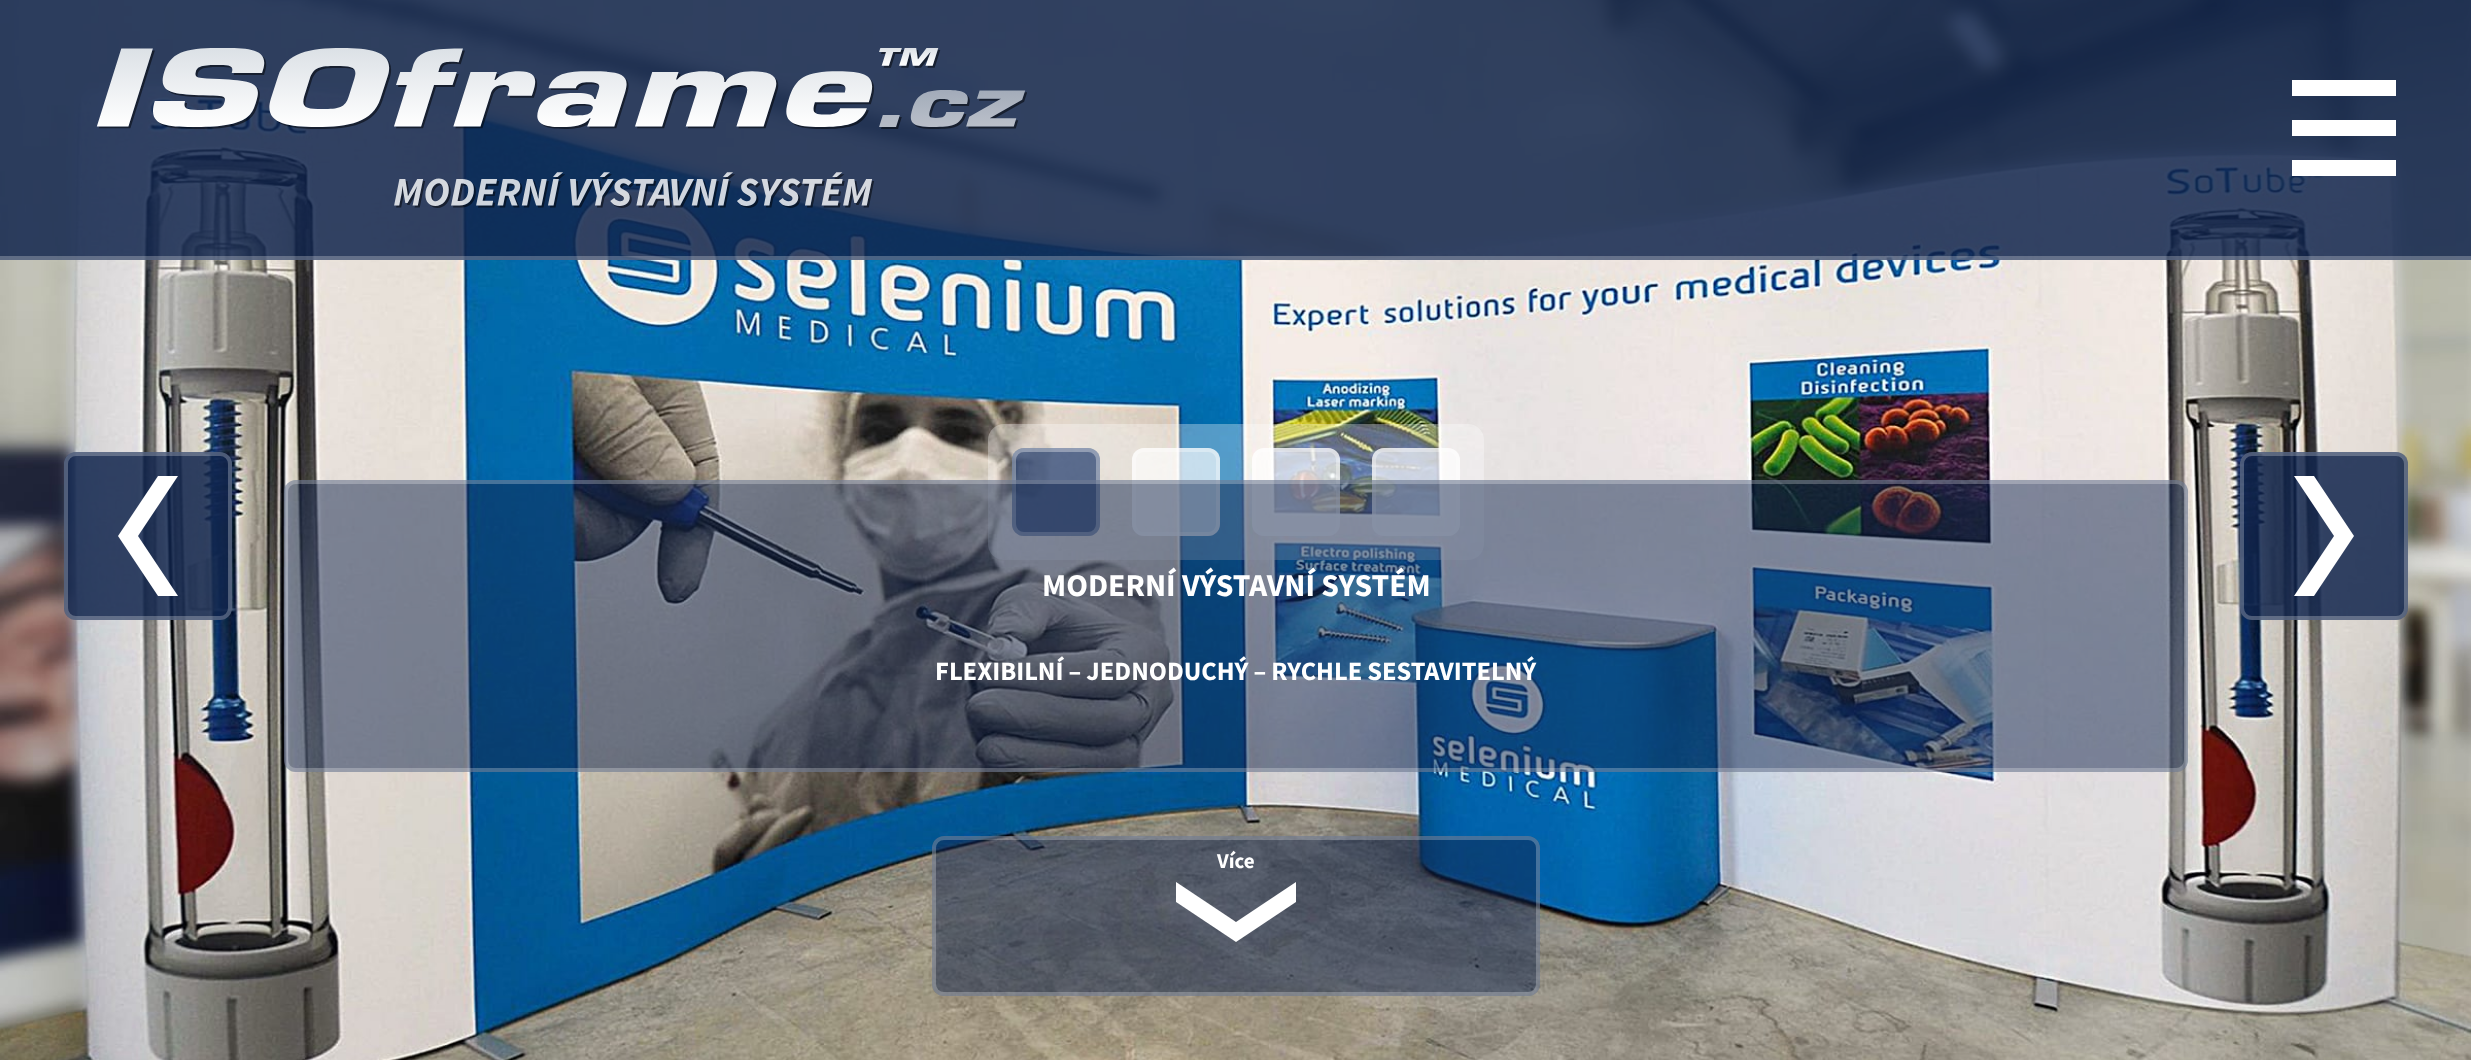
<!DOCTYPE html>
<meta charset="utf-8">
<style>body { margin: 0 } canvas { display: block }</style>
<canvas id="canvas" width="2471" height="1060"></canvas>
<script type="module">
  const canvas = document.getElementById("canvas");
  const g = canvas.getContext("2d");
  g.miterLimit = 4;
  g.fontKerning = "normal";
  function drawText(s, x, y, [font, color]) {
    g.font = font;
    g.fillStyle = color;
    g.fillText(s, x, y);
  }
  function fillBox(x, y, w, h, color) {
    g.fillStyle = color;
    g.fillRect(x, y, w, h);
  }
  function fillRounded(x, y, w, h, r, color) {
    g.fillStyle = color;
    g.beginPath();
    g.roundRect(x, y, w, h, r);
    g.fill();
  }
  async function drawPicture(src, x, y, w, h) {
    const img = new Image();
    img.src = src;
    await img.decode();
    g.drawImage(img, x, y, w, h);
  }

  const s1 = ["bold 31.75px Source Sans Pro", "#FFFFFF"];
  const s2 = ["bold 26.5px Source Sans Pro", "#FFFFFF"];
  const s3 = ["bold 21px Source Sans Pro", "#FFFFFF"];

  fillBox(0, 0, 2471, 1060, "#FFFFFF");
  await drawPicture("pic3.png", 0, 0, 2471, 1060);
  fillBox(0, 0, 2471, 260, "rgba(16, 36, 76, 0.85)");
  fillBox(0, 256, 2471, 4, "rgba(255, 255, 255, 0.25)");
  await drawPicture("pic1.png", 96, 48, 931, 160);
  await drawPicture("pic2.png", 2292, 80, 104, 96);
  fillRounded(64, 452, 168, 168, 12, "rgba(16, 36, 76, 0.85)");
  await drawPicture("pic4.png", 118, 476, 60, 120);
  g.beginPath();
  g.roundRect(66, 454, 164, 164, 10);
  g.strokeStyle = "rgba(255, 255, 255, 0.25)";
  g.lineWidth = 4;
  g.stroke();
  fillRounded(988, 424, 496, 136, 16, "rgba(255, 255, 255, 0.33)");
  fillRounded(1012, 448, 88, 88, 12, "rgba(20, 48, 102, 0.67)");
  g.beginPath();
  g.roundRect(1014, 450, 84, 84, 10);
  g.strokeStyle = "rgba(255, 255, 255, 0.34)";
  g.stroke();
  fillRounded(1132, 448, 88, 88, 12, "rgba(255, 255, 255, 0.67)");
  g.beginPath();
  g.roundRect(1134, 450, 84, 84, 10);
  g.stroke();
  fillRounded(1252, 448, 88, 88, 12, "rgba(255, 255, 255, 0.67)");
  g.beginPath();
  g.roundRect(1254, 450, 84, 84, 10);
  g.stroke();
  fillRounded(1372, 448, 88, 88, 12, "rgba(255, 255, 255, 0.67)");
  g.beginPath();
  g.roundRect(1374, 450, 84, 84, 10);
  g.stroke();
  fillRounded(2240, 452, 168, 168, 12, "rgba(16, 36, 76, 0.85)");
  await drawPicture("pic5.png", 2294, 476, 60, 120);
  g.beginPath();
  g.roundRect(2242, 454, 164, 164, 10);
  g.strokeStyle = "rgba(255, 255, 255, 0.25)";
  g.stroke();
  fillRounded(284, 480, 1904, 292, 12, "rgba(16, 36, 76, 0.5)");
  g.beginPath();
  g.roundRect(286, 482, 1900, 288, 10);
  g.stroke();
  drawText("MODERNÍ VÝSTAVNÍ SYSTÉM", 1042, 596, s1);
  g.wordSpacing = "-0.25px";
  drawText("FLEXIBILNÍ – JEDNODUCHÝ – RYCHLE SESTAVITELNÝ", 935, 680, s2);
  fillRounded(932, 836, 608, 160, 12, "rgba(16, 36, 76, 0.5)");
  g.beginPath();
  g.roundRect(934, 838, 604, 156, 10);
  g.stroke();
  g.wordSpacing = "0px";
  drawText("Více", 1217, 868, s3);
  await drawPicture("pic6.png", 1176, 882, 120, 60);
</script>
